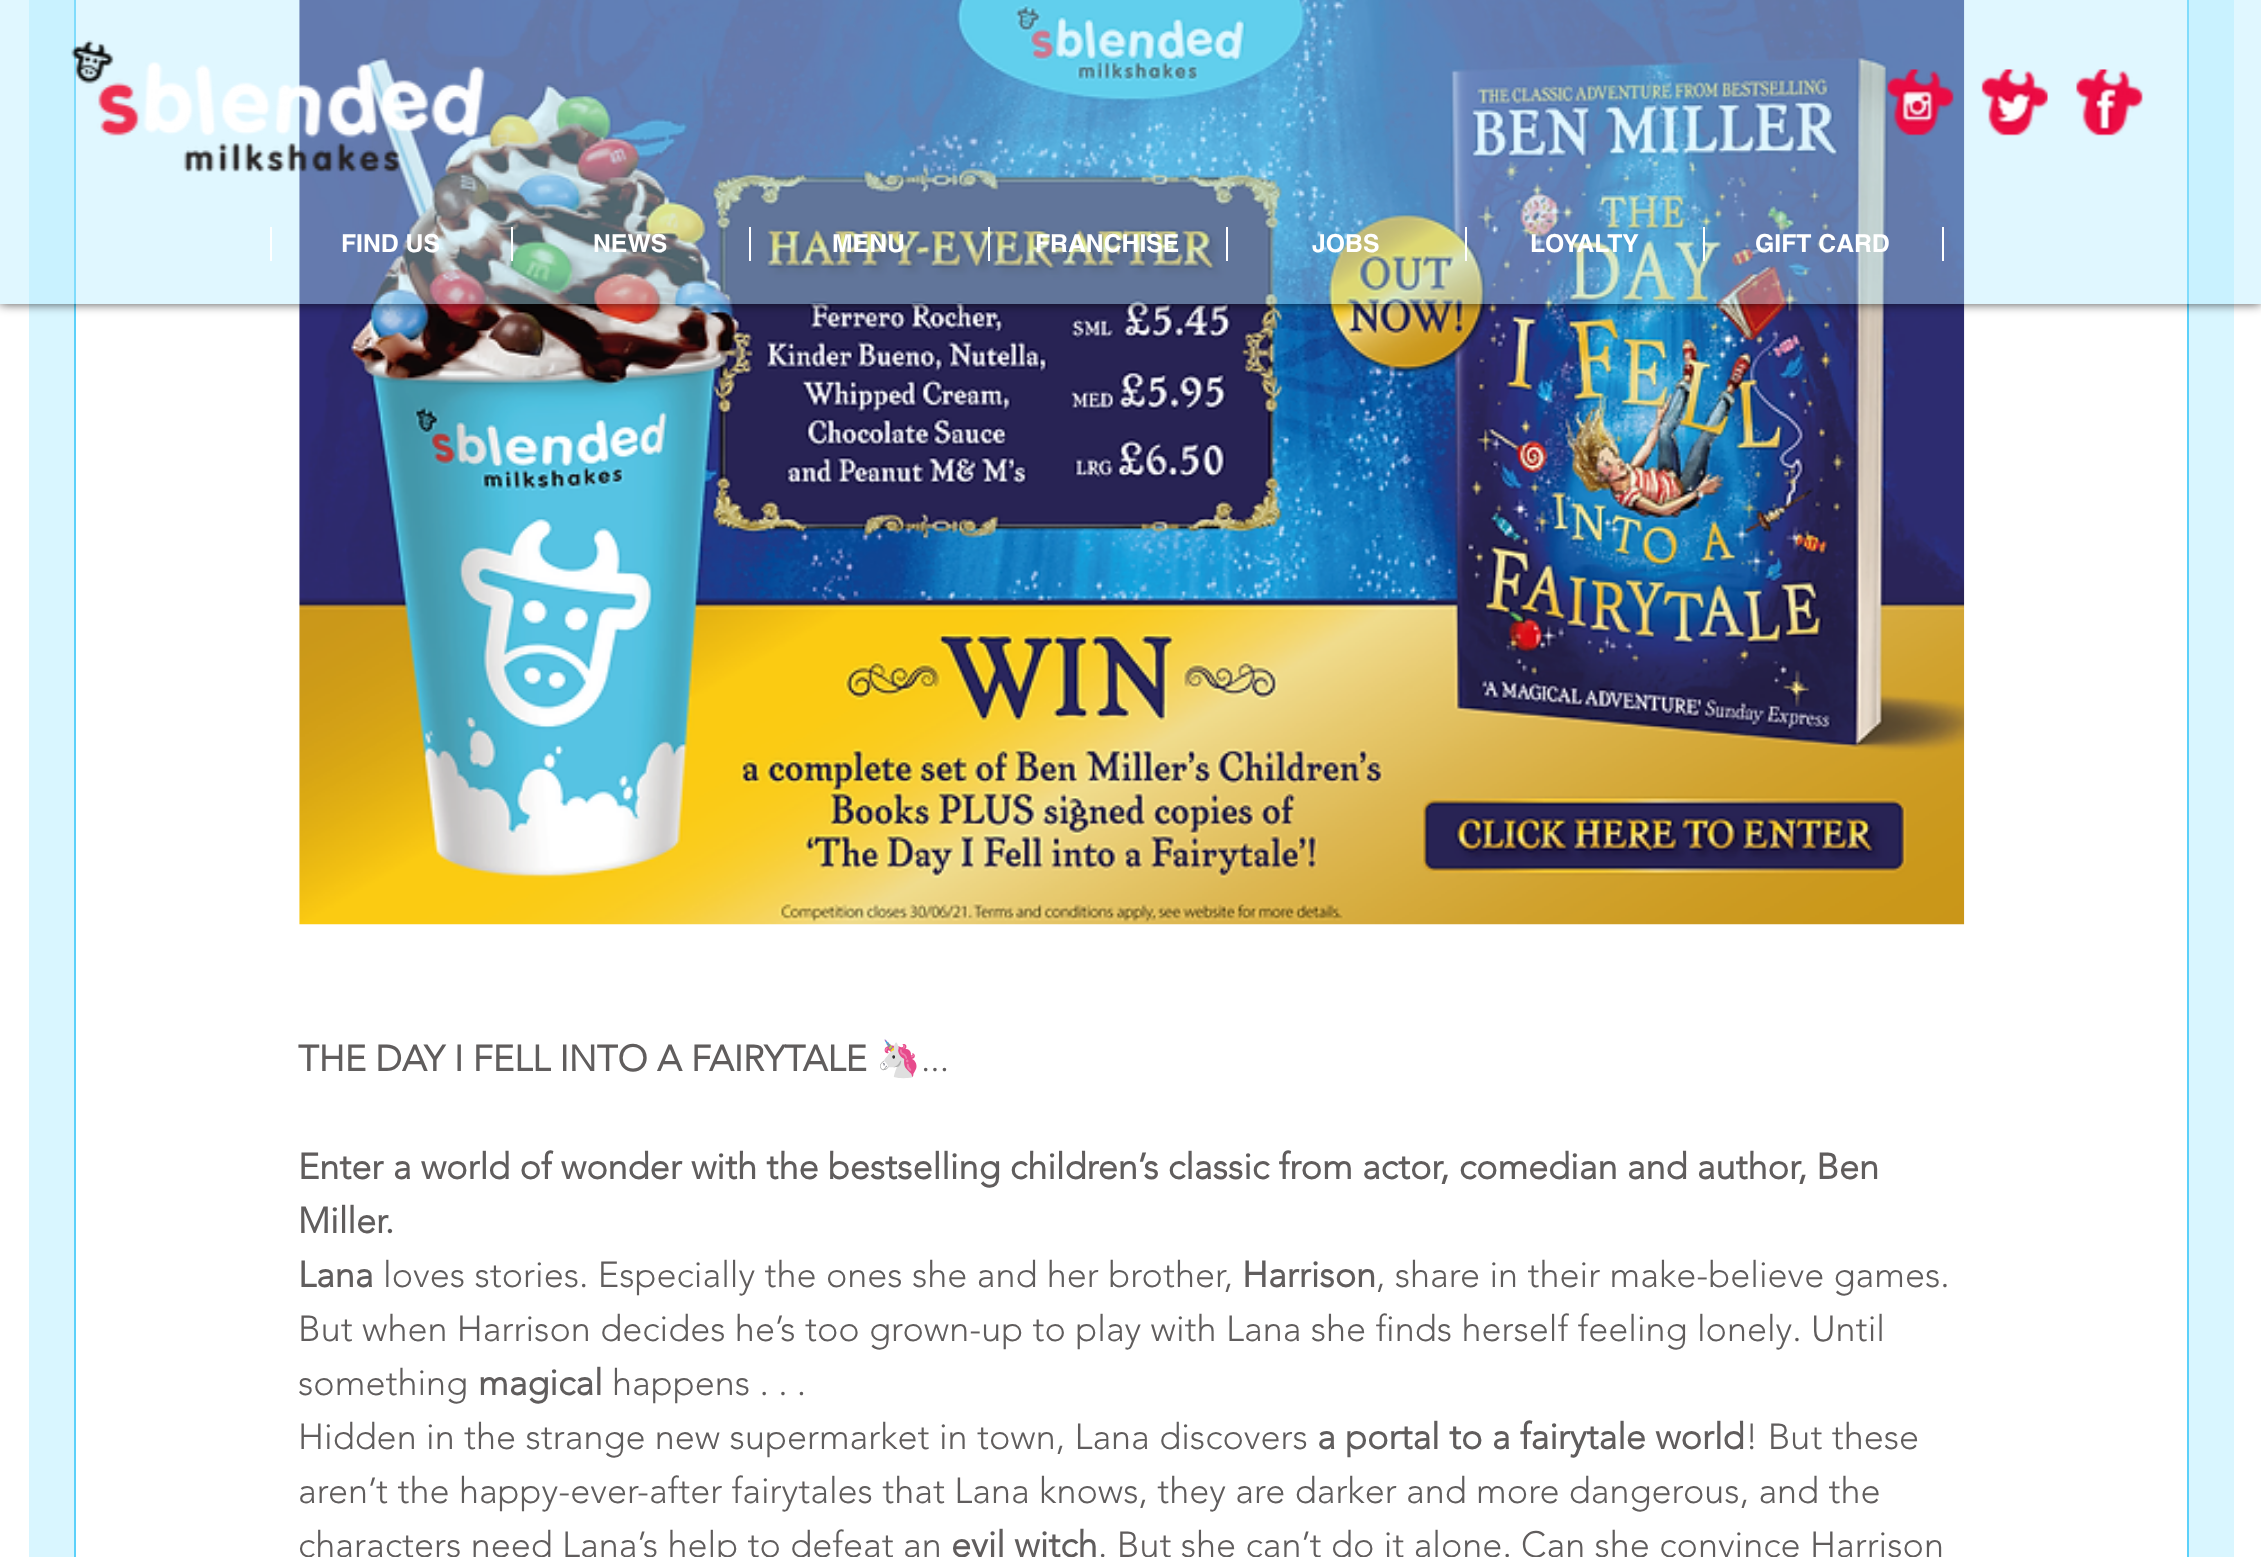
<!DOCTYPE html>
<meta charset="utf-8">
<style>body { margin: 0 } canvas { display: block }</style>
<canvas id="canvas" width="2261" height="1557"></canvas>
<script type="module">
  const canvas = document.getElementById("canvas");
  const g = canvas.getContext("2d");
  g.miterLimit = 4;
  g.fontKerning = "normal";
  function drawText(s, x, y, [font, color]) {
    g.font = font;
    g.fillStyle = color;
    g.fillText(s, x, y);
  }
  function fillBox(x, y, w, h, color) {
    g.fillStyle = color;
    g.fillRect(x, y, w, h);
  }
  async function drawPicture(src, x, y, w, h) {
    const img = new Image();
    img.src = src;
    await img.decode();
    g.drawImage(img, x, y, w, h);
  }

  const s1 = ["bold 24.75px helvetica", "#FFFFFF"];
  const s2 = ["bold 36px 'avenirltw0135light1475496'", "#605D5D"];
  const s3 = ["36px Noto Color Emoji", "#605D5D"];
  const s4 = ["300 36px 'avenirltw0135light1475496'", "#605D5D"];

  fillBox(0, 0, 2261, 1557, "#FFFFFF");
  fillBox(29, 0, 2205, 1557, "#D9F6FF");
  g.fillStyle = "#FFFFFF";
  g.beginPath();
  g.rect(75, -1, 2113, 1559);
  g.fill();
  g.strokeStyle = "#5CD1FA";
  g.lineWidth = 2;
  g.stroke();
  await drawPicture("pic5.png", 299, 0, 1666, 925);
  g.save();
  g.beginPath();
  g.moveTo(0, 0);
  g.lineTo(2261, 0);
  g.lineTo(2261, 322);
  g.lineTo(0, 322);
  g.closePath();
  g.moveTo(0, 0);
  g.lineTo(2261, 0);
  g.lineTo(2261, 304);
  g.lineTo(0, 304);
  g.closePath();
  g.clip("evenodd");
  g.fillStyle = "rgba(0, 0, 0, 0.7)";
  g.filter = "blur(5.5px)";
  g.beginPath();
  g.rect(0, 0, 2261, 304);
  g.fill();
  g.filter = "none";
  g.restore();
  fillBox(0, 0, 2261, 304, "rgba(179, 236, 255, 0.41)");
  await drawPicture("pic1.png", 71, 40, 414, 132);
  await drawPicture("pic2.png", 1887, 69, 67, 67);
  await drawPicture("pic3.png", 1981, 69, 67, 67);
  await drawPicture("pic4.png", 2076, 69, 67, 67);
  fillBox(270, 227, 2, 34, "#FFFFFF");
  drawText("FIND US", 341, 252, s1);
  fillBox(511, 227, 2, 34, "#FFFFFF");
  drawText("NEWS", 593, 252, s1);
  fillBox(749, 227, 2, 34, "#FFFFFF");
  drawText("MENU", 832, 252, s1);
  fillBox(988, 227, 2, 34, "#FFFFFF");
  drawText("FRANCHISE", 1035, 252, s1);
  fillBox(1226, 227, 2, 34, "#FFFFFF");
  drawText("JOBS", 1312, 252, s1);
  fillBox(1465, 227, 2, 34, "#FFFFFF");
  drawText("LOYALTY", 1530, 252, s1);
  fillBox(1703, 227, 2, 34, "#FFFFFF");
  drawText("GIFT CARD", 1755, 252, s1);
  fillBox(1942, 227, 2, 34, "#FFFFFF");
  drawText("THE DAY I FELL INTO A FAIRYTALE", 298, 1071, s2);
  drawText("🦄", 876, 1071, s3);
  drawText("...", 921, 1071, s4);
  drawText("Enter a world of wonder with the bestselling children’s classic from actor, comedian and author, Ben", 298, 1179, s2);
  drawText("Miller.", 298, 1233, s2);
  drawText("Lana", 298, 1287, s2);
  drawText("loves stories. Especially the ones she and her brother,", 383, 1287, s4);
  drawText("Harrison", 1242, 1287, s2);
  drawText(", share in their make-believe games.", 1376, 1287, s4);
  drawText("But when Harrison decides he’s too grown-up to play with Lana she finds herself feeling lonely. Until", 298, 1341, s4);
  drawText("something", 298, 1395, s4);
  drawText("magical", 478, 1395, s2);
  drawText("happens . . .", 612, 1395, s4);
  drawText("Hidden in the strange new supermarket in town, Lana discovers", 298, 1449, s4);
  drawText("a portal to a fairytale world", 1317, 1449, s2);
  drawText("! But these", 1745, 1449, s4);
  drawText("aren’t the happy-ever-after fairytales that Lana knows, they are darker and more dangerous, and the", 298, 1503, s4);
  drawText("characters need Lana’s help to defeat an", 298, 1557, s4);
  drawText("evil witch", 951, 1557, s2);
  drawText(". But she can’t do it alone. Can she convince Harrison", 1098, 1557, s4);
</script>
